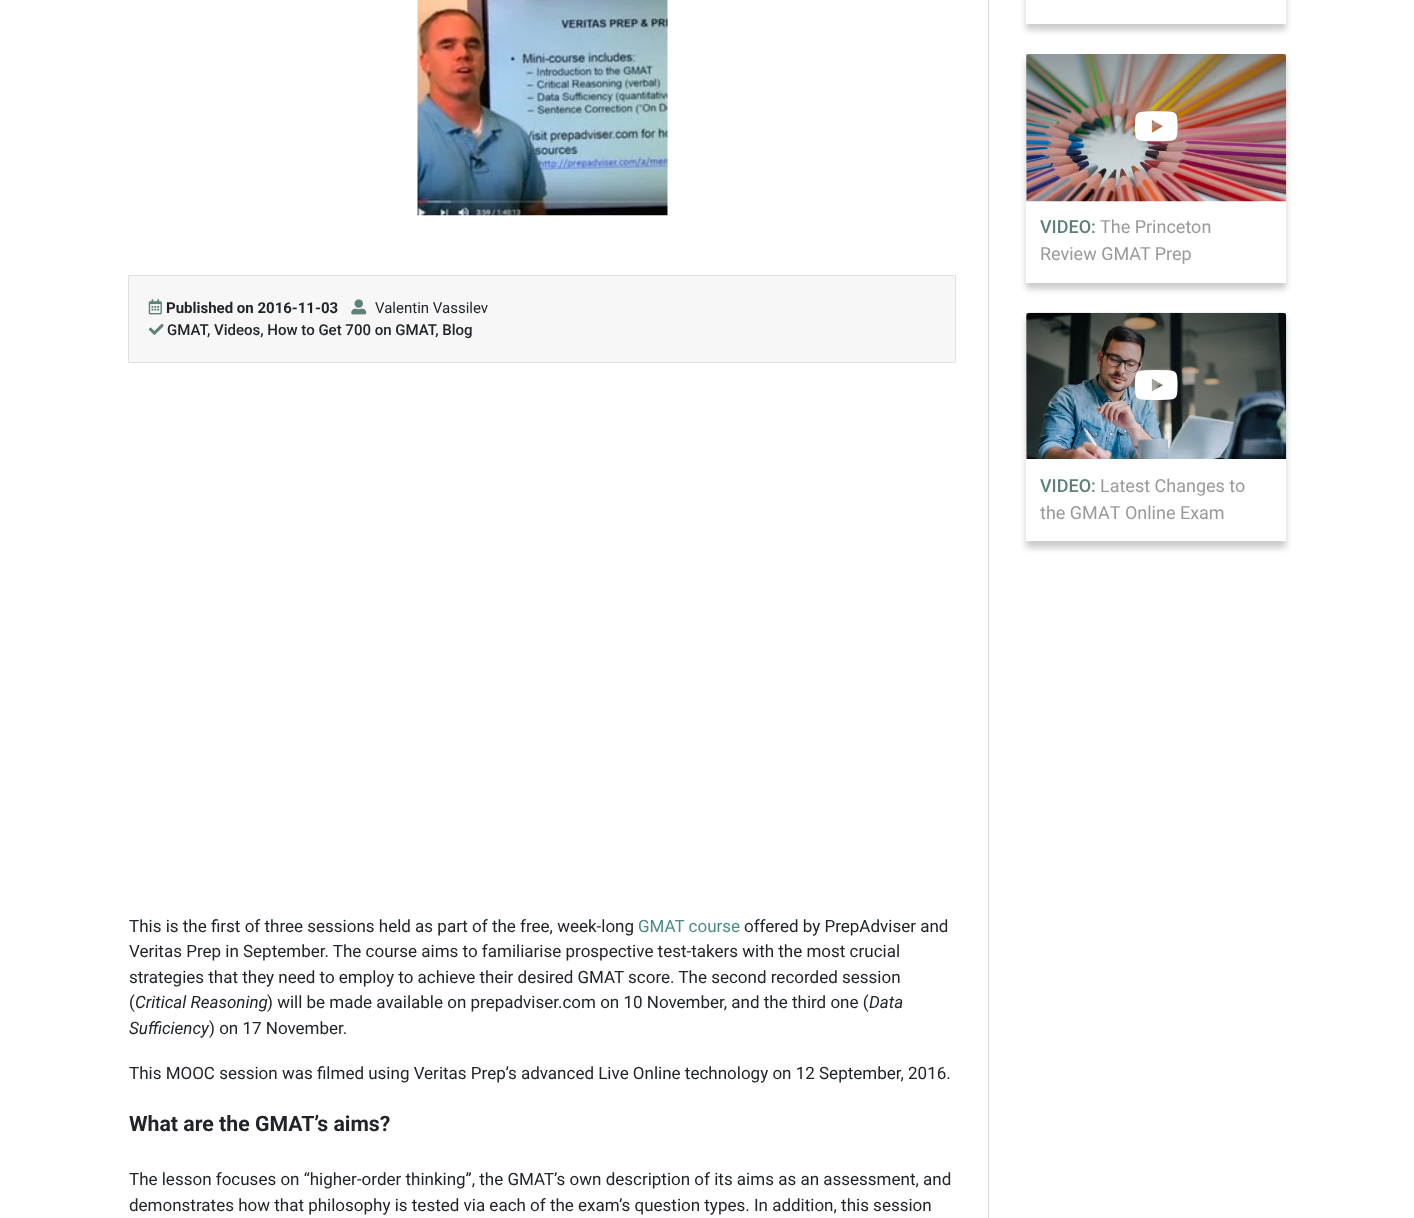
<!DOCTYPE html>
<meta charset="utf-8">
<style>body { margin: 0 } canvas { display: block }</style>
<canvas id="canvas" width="1414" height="1218"></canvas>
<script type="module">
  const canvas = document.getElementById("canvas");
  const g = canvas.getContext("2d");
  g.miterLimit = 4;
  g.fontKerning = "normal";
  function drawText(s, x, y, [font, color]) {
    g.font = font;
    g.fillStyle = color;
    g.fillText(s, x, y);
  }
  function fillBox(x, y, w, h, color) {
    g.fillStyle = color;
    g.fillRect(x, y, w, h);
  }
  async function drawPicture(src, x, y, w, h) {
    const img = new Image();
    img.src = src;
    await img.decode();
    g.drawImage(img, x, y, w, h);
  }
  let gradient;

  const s1 = ["bold 15px Roboto", "#212529"];
  const s2 = ["15px Roboto", "#212529"];
  const s3 = ["500 15px Roboto", "#212529"];
  const s4 = ["17px Roboto", "#212529"];
  const s5 = ["17px Roboto", "#488D86"];
  const s6 = ["italic 17px Roboto", "#212529"];
  const s7 = ["bold 21.25px Roboto", "#212529"];
  const s8 = ["500 18px Roboto", "#5D8079"];
  const s9 = ["18px Roboto", "#999999"];

  fillBox(0, 0, 1414, 1218, "#FFFFFF");
  fillBox(988, 0, 1, 1218, "#DCDADB");
  await drawPicture("pic1.png", 417, 0, 251, 216);
  g.fillStyle = "#F7F7F7";
  g.beginPath();
  g.rect(128.5, 275.5, 827, 87);
  g.fill();
  g.strokeStyle = "#E0E0E0";
  g.stroke();
  await drawPicture("pic2.png", 148, 299, 14, 16);
  drawText("Published on 2016-11-03", 166, 313, s1);
  await drawPicture("pic3.png", 351, 299, 16, 16);
  drawText("Valentin Vassilev", 375, 313, s2);
  await drawPicture("pic4.png", 148, 323, 16, 12);
  drawText("GMAT, Videos, How to Get 700 on GMAT, Blog", 167, 335, s3);
  drawText("This is the first of three sessions held as part of the free, week-long", 129, 932, s4);
  drawText("GMAT course", 638, 932, s5);
  drawText("offered by PrepAdviser and", 744, 932, s4);
  drawText("Veritas Prep in September. The course aims to familiarise prospective test-takers with the most crucial", 129, 957, s4);
  drawText("strategies that they need to employ to achieve their desired GMAT score. The second recorded session", 129, 983, s4);
  drawText("(", 129, 1008, s4);
  drawText("Critical Reasoning", 135, 1008, s6);
  drawText(") will be made available on prepadviser.com on 10 November, and the third one (", 267, 1008, s4);
  drawText("Data", 869, 1008, s6);
  drawText("Sufficiency", 129, 1034, s6);
  drawText(") on 17 November.", 209, 1034, s4);
  drawText("This MOOC session was filmed using Veritas Prep’s advanced Live Online technology on 12 September, 2016.", 129, 1079, s4);
  drawText("What are the GMAT’s aims?", 129, 1131, s7);
  drawText("The lesson focuses on “higher-order thinking”, the GMAT’s own description of its aims as an assessment, and", 129, 1185, s4);
  drawText("demonstrates how that philosophy is tested via each of the exam’s question types. In addition, this session", 129, 1211, s4);
  g.fillStyle = "rgba(0, 0, 0, 0.2)";
  g.filter = "blur(3px)";
  g.beginPath();
  g.rect(1026, -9, 260, 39);
  g.fill();
  g.filter = "none";
  fillBox(1026, 0, 260, 24, "#FFFFFF");
  g.fillStyle = "rgba(0, 0, 0, 0.2)";
  g.filter = "blur(3px)";
  g.beginPath();
  g.rect(1026, 60, 260, 229);
  g.fill();
  g.filter = "none";
  fillBox(1026, 55, 260, 228, "#FFFFFF");
  await drawPicture("pic5.png", 1026, 54, 261, 148);
  gradient = g.createLinearGradient(1156, 54, 1156, 201);
  gradient.addColorStop(0, "rgba(1, 1, 1, 0.3)");
  gradient.addColorStop(1, "rgba(1, 1, 1, 0)");
  g.fillStyle = gradient;
  g.fillRect(1026, 54, 260, 136);
  await drawPicture("pic6.png", 1134, 111, 44, 31);
  drawText("VIDEO:", 1040, 233, s8);
  drawText("The Princeton", 1100, 233, s9);
  drawText("Review GMAT Prep", 1040, 260, s9);
  g.fillStyle = "rgba(0, 0, 0, 0.2)";
  g.filter = "blur(3px)";
  g.beginPath();
  g.rect(1026, 319, 260, 229);
  g.fill();
  g.filter = "none";
  fillBox(1026, 314, 260, 227, "#FFFFFF");
  await drawPicture("pic7.png", 1026, 312, 261, 147);
  gradient = g.createLinearGradient(1156, 313, 1156, 459);
  gradient.addColorStop(0, "rgba(1, 1, 1, 0.3)");
  gradient.addColorStop(1, "rgba(1, 1, 1, 0)");
  g.fillStyle = gradient;
  g.fillRect(1026, 313, 260, 136);
  await drawPicture("pic8.png", 1134, 370, 44, 30);
  drawText("VIDEO:", 1040, 492, s8);
  drawText("Latest Changes to", 1100, 492, s9);
  drawText("the GMAТ Online Exam", 1040, 519, s9);
</script>
